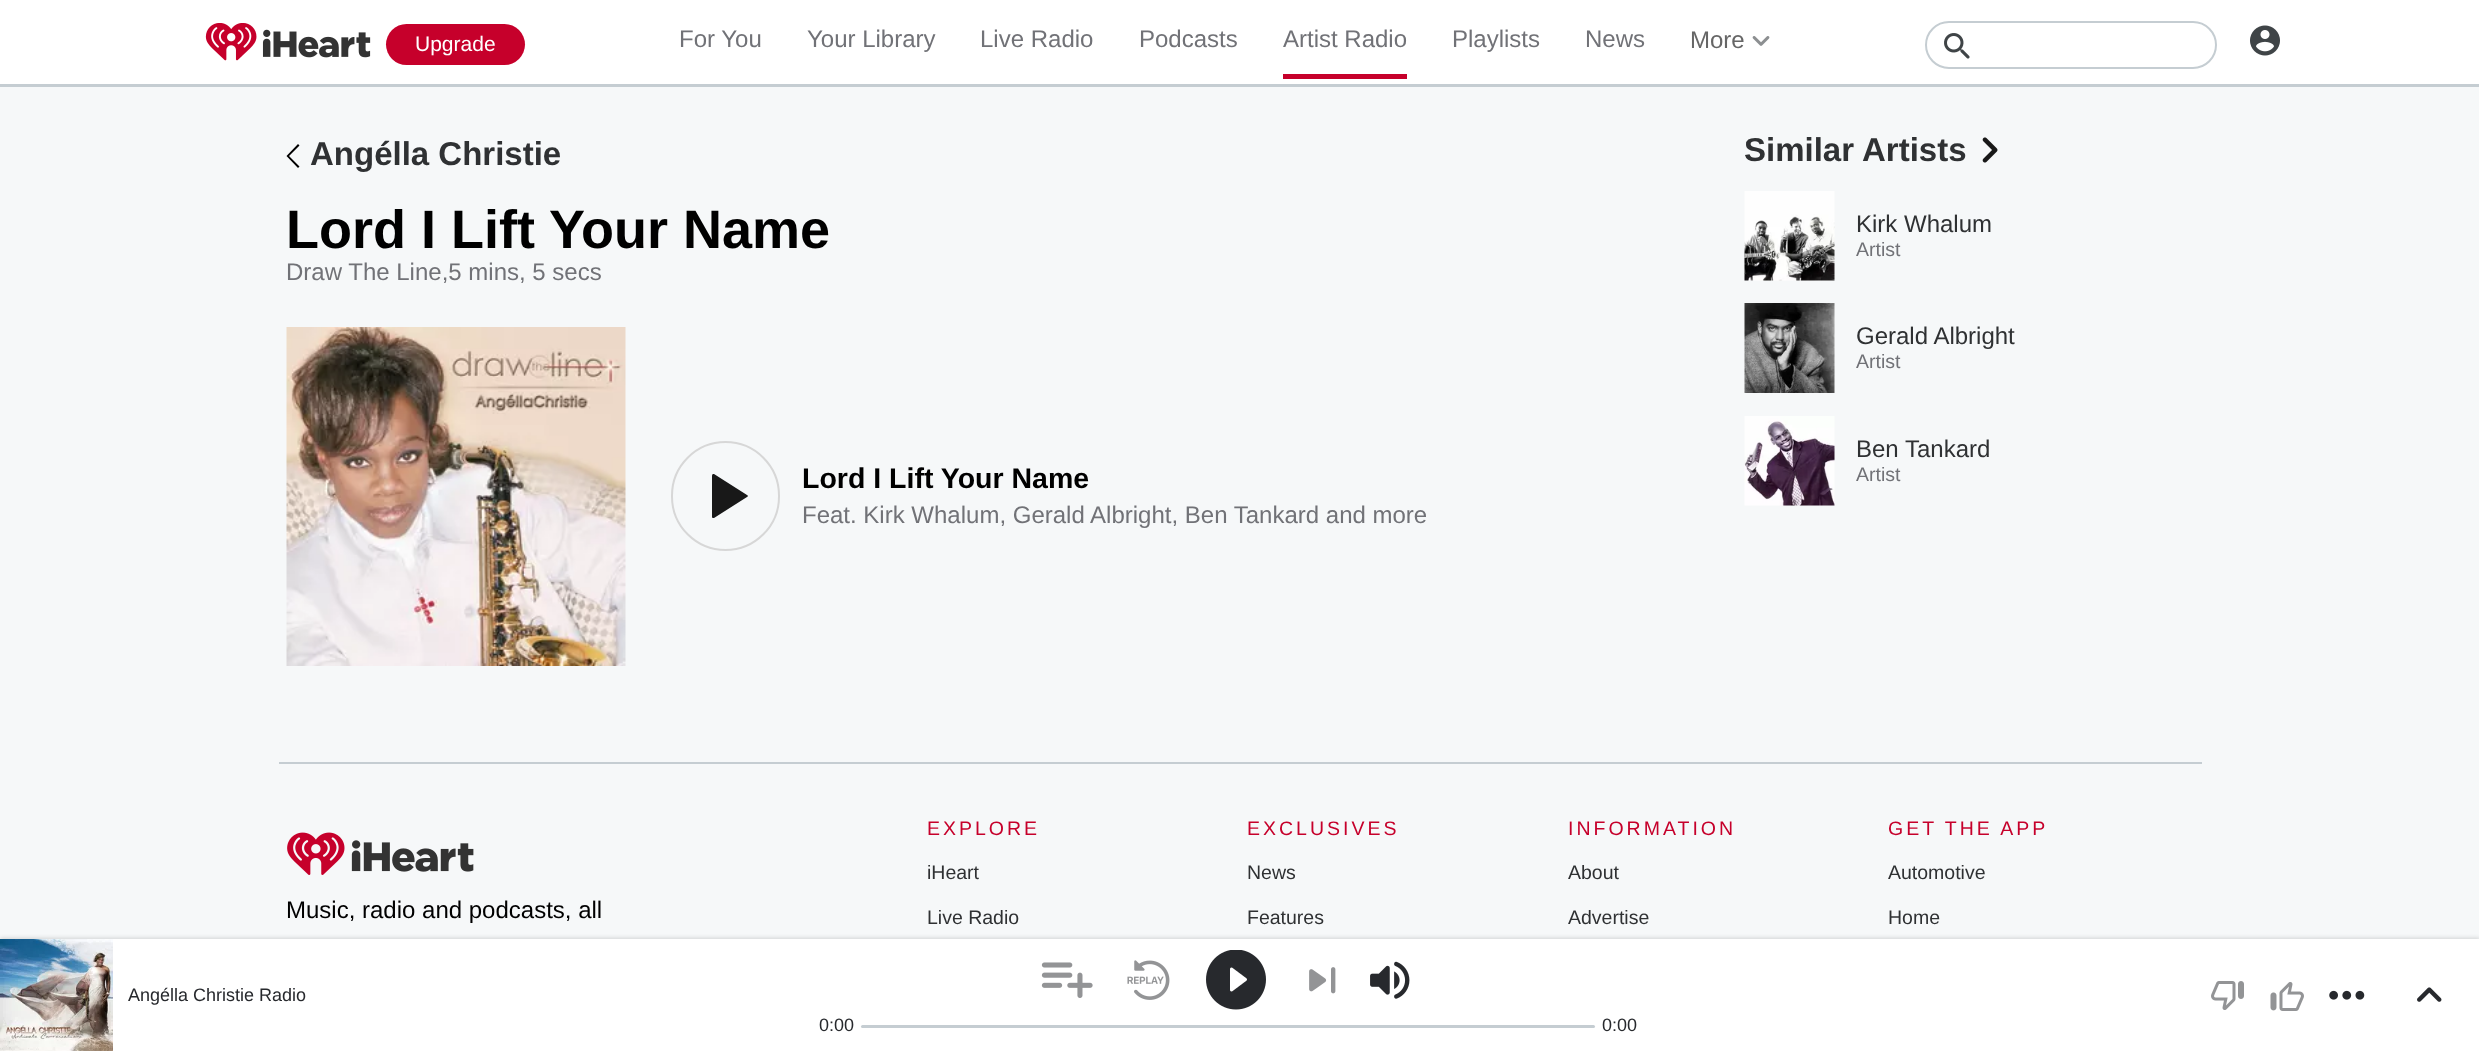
<!DOCTYPE html>
<meta charset="utf-8">
<style>body { margin: 0 } canvas { display: block }</style>
<canvas id="canvas" width="2479" height="1051"></canvas>
<script type="module">
  const canvas = document.getElementById("canvas");
  const g = canvas.getContext("2d");
  g.miterLimit = 4;
  g.fontKerning = "normal";
  function drawText(s, x, y, [font, color]) {
    g.font = font;
    g.fillStyle = color;
    g.fillText(s, x, y);
  }
  function fillBox(x, y, w, h, color) {
    g.fillStyle = color;
    g.fillRect(x, y, w, h);
  }
  function fillRounded(x, y, w, h, r, color) {
    g.fillStyle = color;
    g.beginPath();
    g.roundRect(x, y, w, h, r);
    g.fill();
  }
  async function drawPicture(src, x, y, w, h) {
    const img = new Image();
    img.src = src;
    await img.decode();
    g.drawImage(img, x, y, w, h);
  }

  const s1 = ["21px Liberation Sans", "#FFFFFF"];
  const s2 = ["24px Liberation Sans", "#717277"];
  const s3 = ["24px Liberation Sans", "#666666"];
  const s4 = ["bold 33px Liberation Sans", "#2F3133"];
  const s5 = ["bold 54px Liberation Sans", "#000000"];
  const s6 = ["bold 28.5px Liberation Sans", "#000000"];
  const s7 = ["24px Liberation Sans", "#2F3133"];
  const s8 = ["19.5px Liberation Sans", "#717277"];
  const s9 = ["24px Liberation Sans", "#000000"];
  const s10 = ["19.5px Liberation Sans", "#C6002B"];
  const s11 = ["19.5px Liberation Sans", "#2F3133"];
  const s12 = ["18px Liberation Sans", "#27292D"];

  fillBox(0, 0, 2479, 1051, "#F6F8F9");
  fillBox(0, 0, 2479, 84, "#FFFFFF");
  fillBox(0, 84, 2479, 3, "#C5CDD2");
  await drawPicture("pic1.png", 205, 23, 166, 38);
  fillRounded(386, 24, 139, 41, 20.5, "#C6002B");
  drawText("Upgrade", 415, 51, s1);
  drawText("For You", 679, 47, s2);
  drawText("Your Library", 807, 47, s2);
  drawText("Live Radio", 980, 47, s2);
  drawText("Podcasts", 1139, 47, s2);
  drawText("Artist Radio", 1283, 47, s2);
  fillBox(1283, 74, 124, 5, "#C6002B");
  drawText("Playlists", 1452, 47, s2);
  drawText("News", 1585, 47, s2);
  drawText("More", 1690, 48, s3);
  await drawPicture("pic2.png", 1752, 36, 18, 10);
  g.beginPath();
  g.roundRect(1926, 22, 290, 46, 23);
  g.strokeStyle = "#C5CDD2";
  g.lineWidth = 2;
  g.stroke();
  await drawPicture("pic3.png", 1944, 33, 26, 26);
  await drawPicture("pic4.png", 2250, 25, 30, 31);
  g.fillStyle = "#000000";
  g.beginPath();
  g.moveTo(298, 144);
  g.lineTo(286.5, 156);
  g.lineTo(298, 168);
  g.lineTo(299.5, 166.5);
  g.lineTo(289, 156);
  g.lineTo(299.5, 145.5);
  g.closePath();
  g.fill();
  drawText("Angélla Christie", 310, 165, s4);
  drawText("Lord I Lift Your Name", 286, 248, s5);
  drawText("Draw The Line,5 mins, 5 secs", 286, 280, s2);
  await drawPicture("pic5.png", 286, 327, 340, 339);
  g.beginPath();
  g.roundRect(672, 442, 107, 108, 53.5);
  g.strokeStyle = "#D7D7D7";
  g.stroke();
  g.fillStyle = "#181818";
  g.beginPath();
  g.moveTo(714, 474);
  g.lineTo(747, 495);
  g.bezierCurveTo(748, 495, 748, 497, 747, 497);
  g.lineTo(714, 518);
  g.bezierCurveTo(713, 518, 712, 518, 712, 517);
  g.lineTo(712, 476);
  g.bezierCurveTo(712, 474, 713, 474, 714, 474);
  g.closePath();
  g.fill();
  drawText("Lord I Lift Your Name", 802, 488, s6);
  drawText("Feat. Kirk Whalum, Gerald Albright, Ben Tankard and more", 802, 523, s2);
  drawText("Similar Artists", 1744, 161, s4);
  await drawPicture("pic6.png", 1982, 137, 16, 26);
  await drawPicture("pic7.png", 1744, 191, 91, 90);
  drawText("Kirk Whalum", 1856, 232, s7);
  drawText("Artist", 1856, 256, s8);
  await drawPicture("pic8.png", 1744, 303, 91, 90);
  drawText("Gerald Albright", 1856, 344, s7);
  drawText("Artist", 1856, 368, s8);
  await drawPicture("pic9.png", 1744, 416, 91, 90);
  drawText("Ben Tankard", 1856, 457, s7);
  drawText("Artist", 1856, 481, s8);
  fillBox(279, 762, 1923, 2, "#C5CDD2");
  await drawPicture("pic10.png", 287, 832, 187, 43);
  drawText("Music, radio and podcasts, all", 286, 918, s9);
  g.letterSpacing = "3px";
  drawText("EXPLORE", 927, 835, s10);
  g.letterSpacing = "0px";
  drawText("iHeart", 927, 879, s11);
  drawText("Live Radio", 927, 924, s11);
  g.letterSpacing = "3px";
  drawText("EXCLUSIVES", 1247, 835, s10);
  g.letterSpacing = "0px";
  drawText("News", 1247, 879, s11);
  drawText("Features", 1247, 924, s11);
  g.letterSpacing = "3px";
  drawText("INFORMATION", 1568, 835, s10);
  g.letterSpacing = "0px";
  drawText("About", 1568, 879, s11);
  drawText("Advertise", 1568, 924, s11);
  g.letterSpacing = "3px";
  drawText("GET THE APP", 1888, 835, s10);
  g.letterSpacing = "0px";
  drawText("Automotive", 1888, 879, s11);
  drawText("Home", 1888, 924, s11);
  g.fillStyle = "rgba(0, 0, 0, 0.15)";
  g.filter = "blur(2px)";
  g.beginPath();
  g.rect(0, 938, 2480, 112);
  g.fill();
  g.filter = "none";
  fillBox(113, 939, 2366, 112, "#FFFFFF");
  await drawPicture("pic11.png", 0, 939, 113, 112);
  drawText("Angélla Christie Radio", 128, 1001, s12);
  await drawPicture("pic12.png", 2211, 981, 33, 29);
  await drawPicture("pic13.png", 2270, 982, 34, 29);
  await drawPicture("pic14.png", 2329, 990, 36, 10);
  await drawPicture("pic15.png", 2417, 987, 25, 15);
  await drawPicture("pic16.png", 1041, 962, 52, 36);
  await drawPicture("pic17.png", 1127, 960, 43, 40);
  await drawPicture("pic18.png", 1206, 950, 60, 60);
  await drawPicture("pic19.png", 1309, 967, 27, 27);
  await drawPicture("pic20.png", 1370, 961, 40, 38);
  drawText("0:00", 819, 1031, s12);
  fillRounded(861, 1025, 734, 3, 1.5, "#C5CDD2");
  drawText("0:00", 1602, 1031, s12);
</script>
